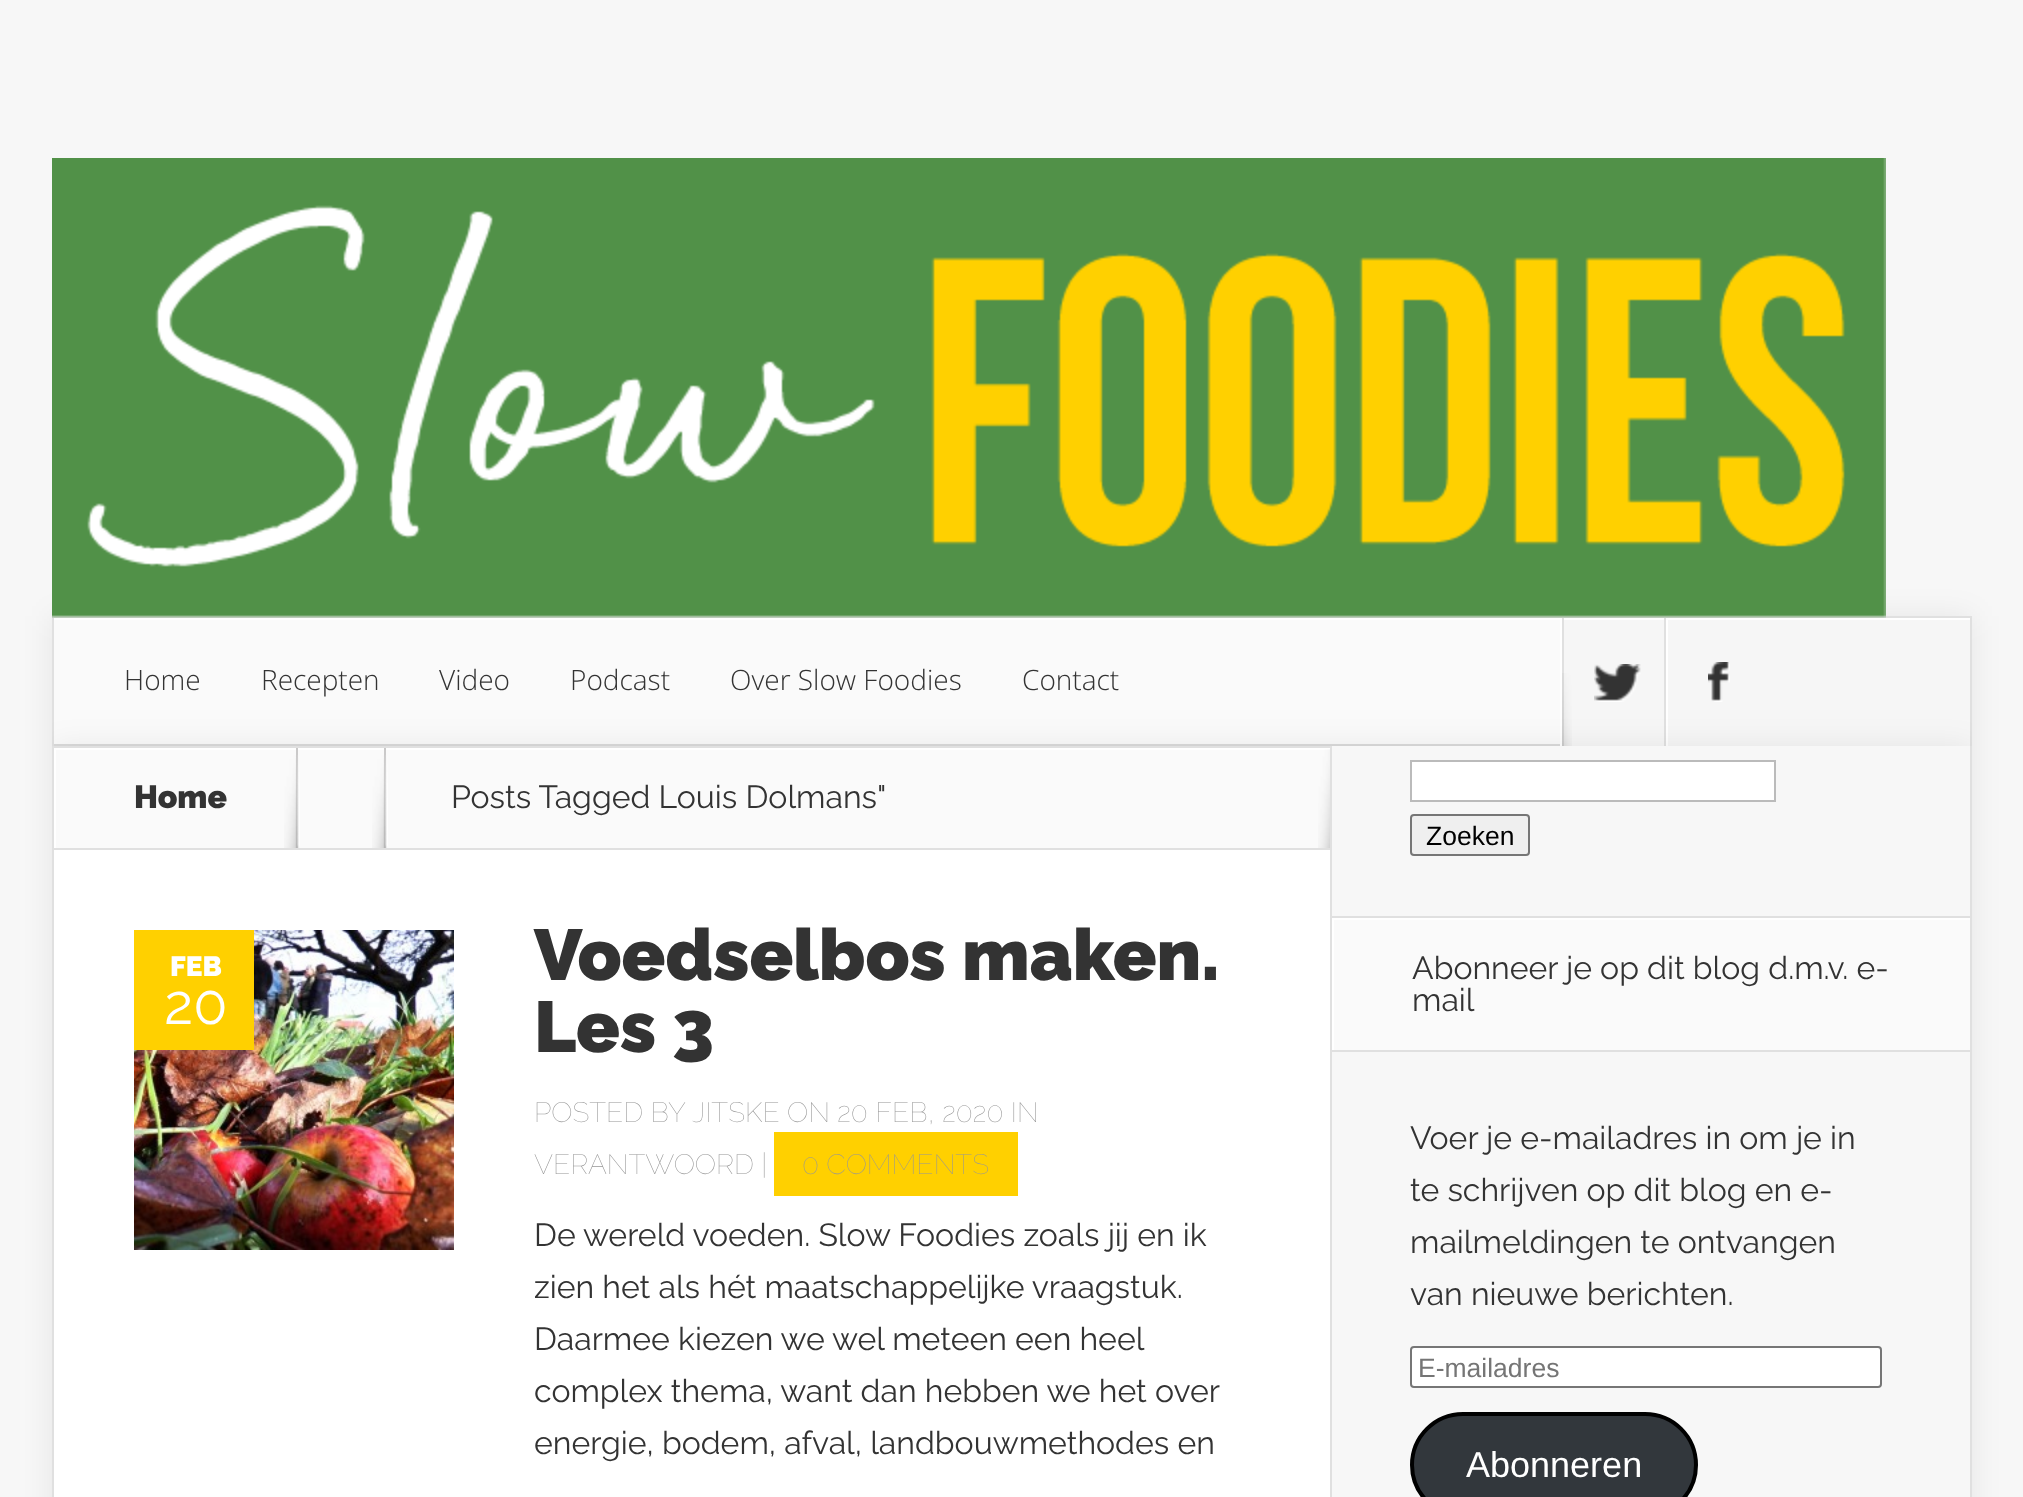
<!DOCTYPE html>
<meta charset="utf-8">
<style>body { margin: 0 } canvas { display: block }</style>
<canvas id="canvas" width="2023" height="1497"></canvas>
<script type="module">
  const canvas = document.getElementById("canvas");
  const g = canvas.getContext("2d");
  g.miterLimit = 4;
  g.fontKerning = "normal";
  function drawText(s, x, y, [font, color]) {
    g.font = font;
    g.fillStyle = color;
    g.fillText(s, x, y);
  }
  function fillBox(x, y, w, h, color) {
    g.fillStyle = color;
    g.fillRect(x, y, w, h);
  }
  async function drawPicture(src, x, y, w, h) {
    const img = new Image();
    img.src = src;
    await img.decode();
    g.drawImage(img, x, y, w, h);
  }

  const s1 = ["300 28px Open Sans", "#333333"];
  const s2 = ["900 32px Raleway", "#333333"];
  const s3 = ["32px Raleway", "#333333"];
  const s4 = ["900 28px Raleway", "#FFFFFF"];
  const s5 = ["56px Raleway", "#FFFFFF"];
  const s6 = ["900 72px Raleway", "#333333"];
  const s7 = ["100 28px Raleway", "#969696"];
  const s8 = ["26.5px Liberation Sans", "#000000"];
  const s9 = ["26.5px Liberation Sans", "#757575"];
  const s10 = ["36px Liberation Sans", "#FFFFFF"];

  fillBox(0, 0, 2023, 1497, "#F7F7F7");
  g.fillStyle = "rgba(0, 0, 0, 0.07)";
  g.filter = "blur(15px)";
  g.beginPath();
  g.rect(52, 616, 1920, 130);
  g.fill();
  g.filter = "none";
  fillBox(52, 616, 1920, 2, "#E0E0E0");
  fillBox(52, 616, 2, 130, "#E0E0E0");
  await drawPicture("pic1.png", 52, 158, 1834, 460);
  fillBox(54, 620, 1506, 124, "#FAFAFA");
  fillBox(54, 744, 1506, 2, "#DADADA");
  fillBox(54, 618, 1506, 2, "#FFFFFF");
  fillBox(1970, 616, 2, 130, "#E0E0E0");
  drawText("Home", 124, 690, s1);
  drawText("Recepten", 261, 690, s1);
  drawText("Video", 439, 690, s1);
  drawText("Podcast", 570, 690, s1);
  drawText("Over Slow Foodies", 730, 690, s1);
  drawText("Contact", 1022, 690, s1);
  fillBox(1560, 618, 2, 128, "#FFFFFF");
  fillBox(1564, 620, 406, 126, "#F6F6F6");
  fillBox(1562, 618, 408, 2, "#FFFFFF");
  fillBox(1562, 618, 2, 128, "#E0E0E0");
  await drawPicture("pic2.png", 1594, 664, 47, 38);
  fillBox(1666, 618, 2, 128, "#FFFFFF");
  fillBox(1664, 618, 2, 128, "#E0E0E0");
  await drawPicture("pic3.png", 1708, 662, 22, 40);
  await drawPicture("pic4.png", 1562, 673, 10, 73);
  g.fillStyle = "rgba(0, 0, 0, 0.07)";
  g.filter = "blur(15px)";
  g.beginPath();
  g.rect(52, 746, 1920, 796);
  g.fill();
  g.filter = "none";
  fillBox(54, 850, 1276, 647, "#FFFFFF");
  fillBox(1970, 746, 2, 751, "#E0E0E0");
  fillBox(52, 746, 2, 751, "#E0E0E0");
  fillBox(1330, 746, 2, 751, "#E0E0E0");
  fillBox(56, 750, 1274, 98, "#FAFAFA");
  g.save();
  g.beginPath();
  g.rect(54, 748, 1276, 100);
  g.clip();
  g.fillStyle = "#FFFFFF";
  g.beginPath();
  g.moveTo(-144, 550);
  g.lineTo(1528, 550);
  g.lineTo(1528, 1046);
  g.lineTo(-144, 1046);
  g.closePath();
  g.moveTo(56, 750);
  g.lineTo(1332, 750);
  g.lineTo(1332, 850);
  g.lineTo(56, 850);
  g.closePath();
  g.fill("evenodd");
  g.restore();
  fillBox(54, 746, 1276, 2, "#E0E0E0");
  fillBox(54, 848, 1276, 2, "#E0E0E0");
  drawText("Home", 134, 808, s2);
  fillBox(296, 748, 2, 100, "#CAC9C9");
  await drawPicture("pic5.png", 284, 755, 16, 93);
  fillBox(384, 748, 2, 100, "#CAC9C9");
  await drawPicture("pic5.png", 372, 755, 16, 93);
  drawText("Posts Tagged Louis Dolmans\"", 451, 808, s3);
  await drawPicture("pic6.png", 1318, 749, 12, 99);
  await drawPicture("pic7.png", 134, 930, 320, 320);
  fillBox(134, 930, 120, 120, "#FFD000");
  drawText("FEB", 170, 976, s4);
  drawText("20", 164, 1024, s5);
  drawText("Voedselbos maken.", 534, 980, s6);
  drawText("Les 3", 534, 1052, s6);
  drawText("POSTED BY", 534, 1122, s7);
  drawText("JITSKE ON 20 FEB, 2020 IN", 692, 1122, s7);
  drawText("VERANTWOORD |", 534, 1174, s7);
  fillBox(774, 1132, 244, 64, "#FFD000");
  drawText("0 COMMENTS", 802, 1174, s7);
  drawText("De wereld voeden. Slow Foodies zoals jij en ik", 534, 1246, s3);
  drawText("zien het als hét maatschappelijke vraagstuk.", 534, 1298, s3);
  drawText("Daarmee kiezen we wel meteen een heel", 534, 1350, s3);
  drawText("complex thema, want dan hebben we het over", 534, 1402, s3);
  drawText("energie, bodem, afval, landbouwmethodes en", 534, 1454, s3);
  fillBox(1332, 746, 638, 751, "#F7F7F7");
  g.fillStyle = "#FFFFFF";
  g.beginPath();
  g.rect(1411, 761, 364, 40);
  g.fill();
  g.strokeStyle = "#BBBBBB";
  g.lineWidth = 2;
  g.stroke();
  g.fillStyle = "#EFEFEF";
  g.beginPath();
  g.roundRect(1411, 815, 118, 40, 3);
  g.fill();
  g.strokeStyle = "#767676";
  g.stroke();
  drawText("Zoeken", 1426, 845, s8);
  fillBox(1334, 920, 636, 130, "#FAFAFA");
  g.save();
  g.beginPath();
  g.rect(1332, 918, 638, 132);
  g.clip();
  g.fillStyle = "#FFFFFF";
  g.beginPath();
  g.moveTo(1134, 720);
  g.lineTo(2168, 720);
  g.lineTo(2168, 1248);
  g.lineTo(1134, 1248);
  g.closePath();
  g.moveTo(1334, 920);
  g.lineTo(1972, 920);
  g.lineTo(1972, 1052);
  g.lineTo(1334, 1052);
  g.closePath();
  g.fill("evenodd");
  g.restore();
  fillBox(1330, 916, 640, 2, "#E0E0E0");
  fillBox(1330, 1050, 640, 2, "#E0E0E0");
  drawText("Abonneer je op dit blog d.m.v. e-", 1412, 979, s3);
  drawText("mail", 1412, 1011, s3);
  drawText("Voer je e-mailadres in om je in", 1410, 1149, s3);
  drawText("te schrijven op dit blog en e-", 1410, 1201, s3);
  drawText("mailmeldingen te ontvangen", 1410, 1253, s3);
  drawText("van nieuwe berichten.", 1410, 1305, s3);
  g.fillStyle = "#FFFFFF";
  g.beginPath();
  g.roundRect(1411, 1347, 470, 40, 3);
  g.fill();
  g.stroke();
  drawText("E-mailadres", 1418, 1377, s9);
  g.fillStyle = "#32373C";
  g.beginPath();
  g.roundRect(1412, 1414, 284, 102, 51);
  g.fill();
  g.strokeStyle = "#000000";
  g.lineWidth = 4;
  g.stroke();
  drawText("Abonneren", 1466, 1477, s10);
</script>
